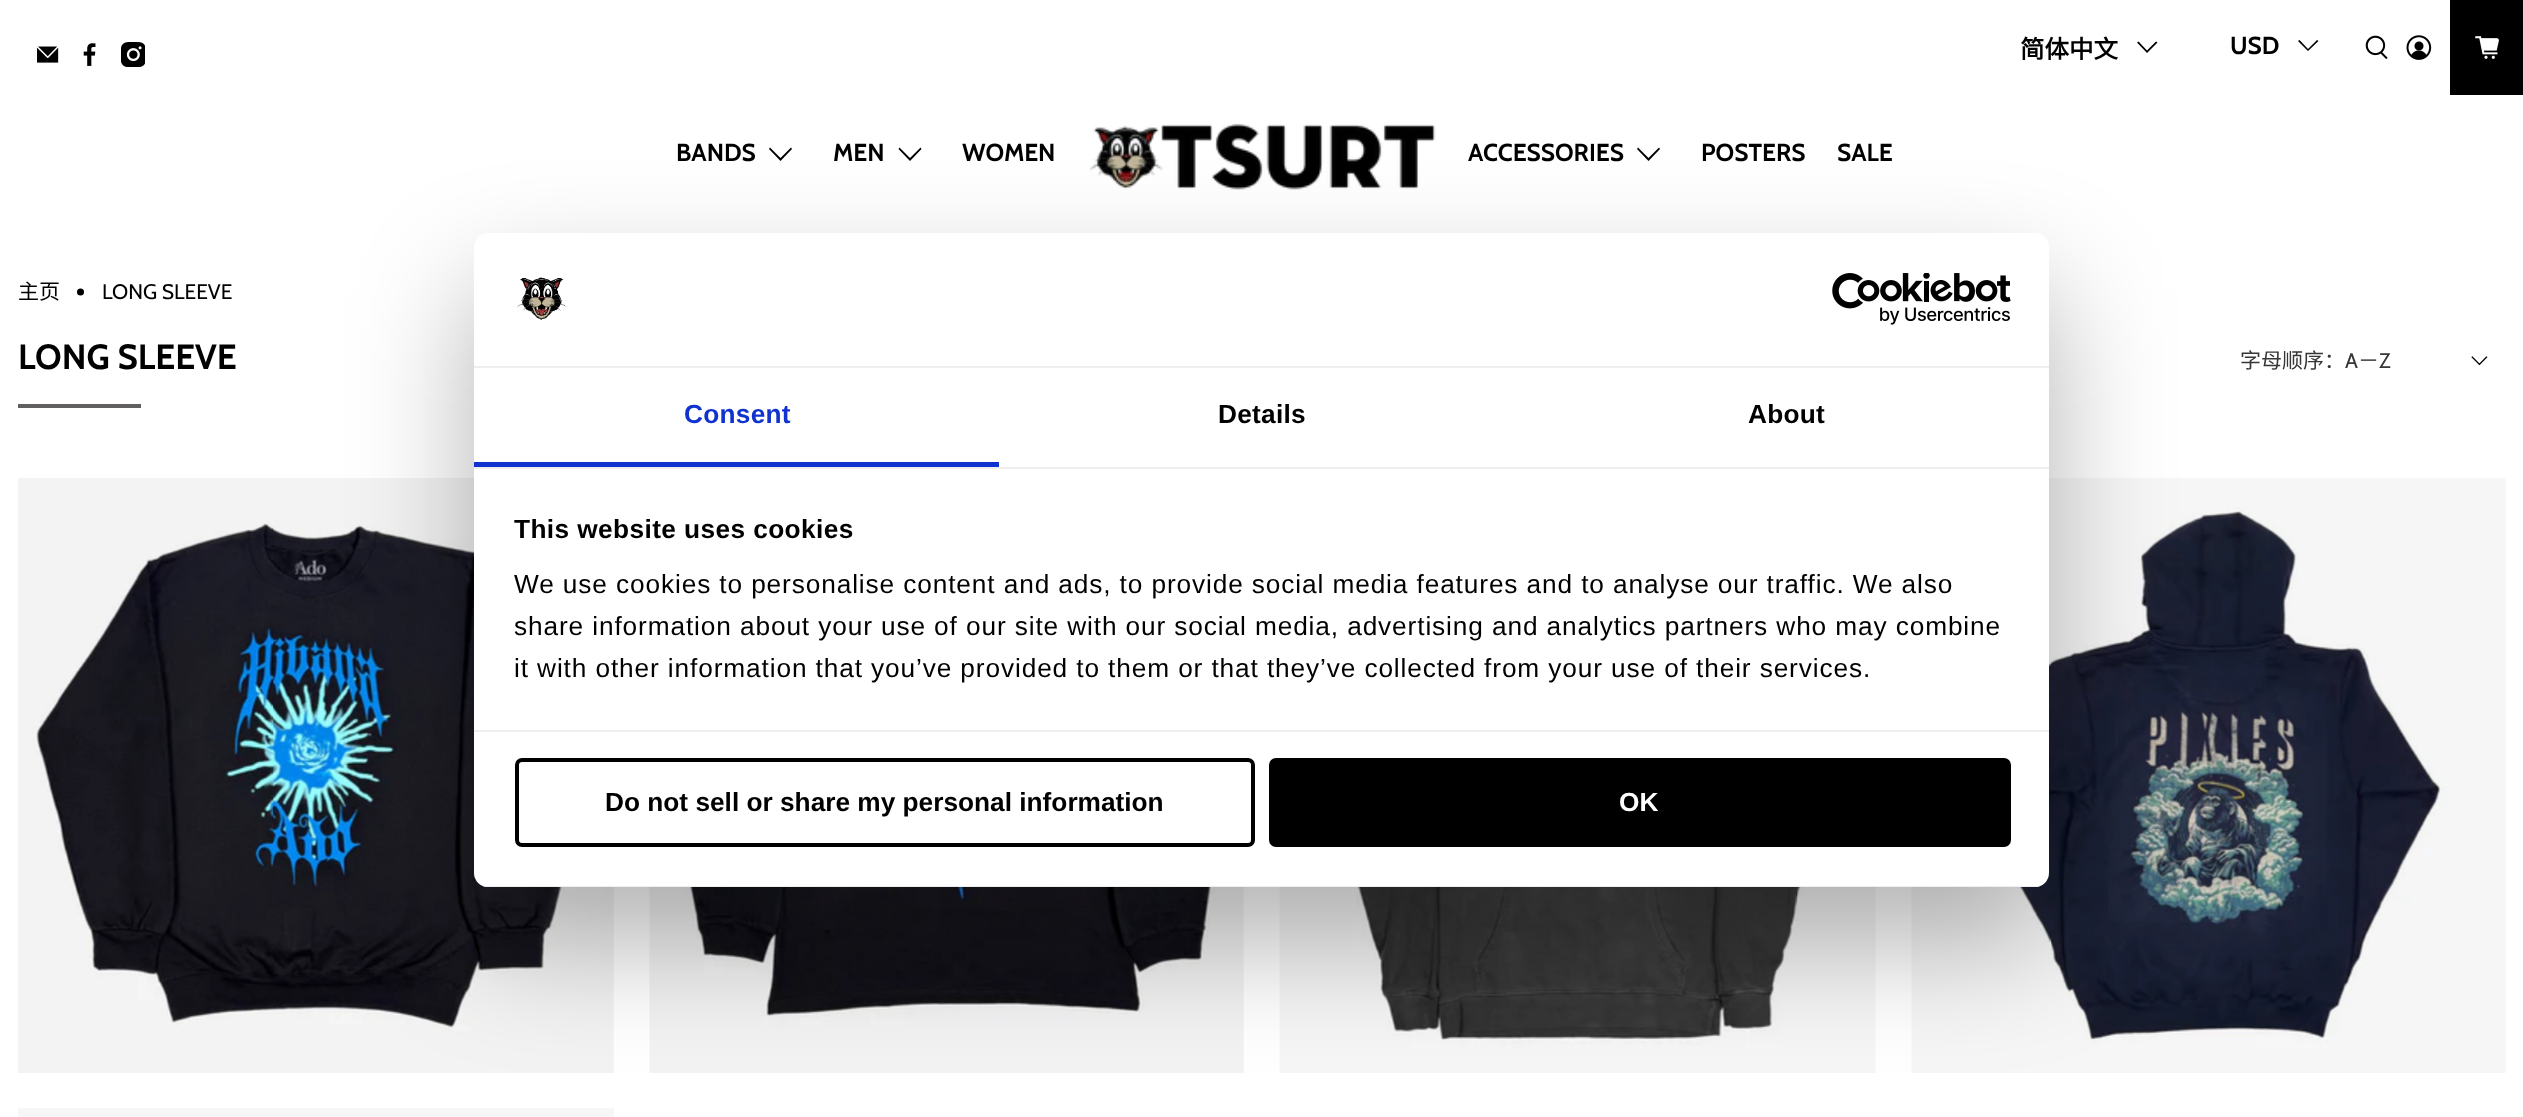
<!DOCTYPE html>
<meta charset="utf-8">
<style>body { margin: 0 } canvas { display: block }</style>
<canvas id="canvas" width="2523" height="1117"></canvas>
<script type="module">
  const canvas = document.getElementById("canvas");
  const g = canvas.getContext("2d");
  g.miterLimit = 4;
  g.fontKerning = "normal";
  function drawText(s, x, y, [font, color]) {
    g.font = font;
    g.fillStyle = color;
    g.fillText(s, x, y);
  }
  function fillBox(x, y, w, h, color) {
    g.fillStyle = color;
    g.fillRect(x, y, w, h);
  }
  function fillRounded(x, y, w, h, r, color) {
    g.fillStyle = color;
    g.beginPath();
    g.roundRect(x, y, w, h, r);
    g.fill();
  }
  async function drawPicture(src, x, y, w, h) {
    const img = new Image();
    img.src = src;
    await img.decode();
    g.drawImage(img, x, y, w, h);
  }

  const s1 = ["bold 24.5px Noto Sans CJK SC", "#000000"];
  const s2 = ["bold 24.5px Cabin", "#000000"];
  const s3 = ["21px Noto Sans CJK SC", "#000000"];
  const s4 = ["21px Cabin", "#000000"];
  const s5 = ["bold 35px Cabin", "#000000"];
  const s6 = ["21px Noto Sans CJK SC", "#363636"];
  const s7 = ["21px Cabin", "#363636"];
  const s8 = ["bold 26.25px Liberation Sans", "#1032CF"];
  const s9 = ["bold 26.25px Liberation Sans", "#000000"];
  const s10 = ["26.25px Liberation Sans", "#000000"];
  const s11 = ["bold 26.25px Liberation Sans", "#FFFFFF"];

  fillBox(0, 0, 2523, 1117, "#FFFFFF");
  await drawPicture("pic1.png", 37, 46, 22, 17);
  await drawPicture("pic2.png", 83, 43, 13, 23);
  await drawPicture("pic3.png", 121, 42, 24, 25);
  drawText("简体中文", 2020, 58, s1);
  g.beginPath();
  g.moveTo(2147, 53);
  g.lineTo(2137, 42.5);
  g.lineTo(2138.5, 41.5);
  g.lineTo(2147, 50.5);
  g.lineTo(2156, 41.5);
  g.lineTo(2157.5, 42.5);
  g.closePath();
  g.fill();
  drawText("USD", 2230, 54, s2);
  g.beginPath();
  g.moveTo(2308, 51);
  g.lineTo(2298, 41);
  g.lineTo(2299.5, 40);
  g.lineTo(2308, 49);
  g.lineTo(2317, 40);
  g.lineTo(2318.5, 41);
  g.closePath();
  g.fill();
  await drawPicture("pic4.png", 2365, 35, 23, 24);
  await drawPicture("pic5.png", 2406, 35, 26, 25);
  fillBox(2450, 0, 73, 95, "#000000");
  await drawPicture("pic6.png", 2475, 36, 24, 23);
  drawText("BANDS", 676, 161, s2);
  g.beginPath();
  g.moveTo(780.5, 161);
  g.lineTo(769, 149);
  g.lineTo(770, 147.5);
  g.lineTo(780.5, 158);
  g.lineTo(791, 147.5);
  g.lineTo(792, 149);
  g.closePath();
  g.fill();
  drawText("MEN", 833, 161, s2);
  g.beginPath();
  g.moveTo(910, 161);
  g.lineTo(898.5, 149);
  g.lineTo(899.5, 147.5);
  g.lineTo(910, 158);
  g.lineTo(920.5, 147.5);
  g.lineTo(921.5, 149);
  g.closePath();
  g.fill();
  drawText("WOMEN", 962, 161, s2);
  await drawPicture("pic7.png", 1089, 123, 347, 67);
  drawText("ACCESSORIES", 1468, 161, s2);
  g.beginPath();
  g.moveTo(1648.5, 161);
  g.lineTo(1637, 149);
  g.lineTo(1638, 147.5);
  g.lineTo(1648.5, 158);
  g.lineTo(1659, 147.5);
  g.lineTo(1660, 149);
  g.closePath();
  g.fill();
  drawText("POSTERS", 1701, 161, s2);
  drawText("SALE", 1837, 161, s2);
  drawText("主页", 18, 299, s3);
  g.beginPath();
  g.arc(80.5, 292, 3.5, 0, Math.PI * 2);
  g.fill();
  drawText("LONG SLEEVE", 102, 299, s4);
  drawText("LONG SLEEVE", 18, 369, s5);
  fillBox(18, 404, 123, 4, "#615F5F");
  drawText("字母顺序：", 2240, 368, s6);
  drawText("A", 2345, 368, s7);
  drawText("－", 2358, 368, s6);
  drawText("Z", 2379, 368, s7);
  await drawPicture("pic8.png", 2471, 356, 17, 10);
  await drawPicture("pic9.png", 18, 478, 596, 595);
  await drawPicture("pic10.png", 649, 887, 595, 186);
  await drawPicture("pic11.png", 1279, 887, 597, 186);
  await drawPicture("pic12.png", 1911, 478, 595, 595);
  fillBox(18, 1108, 596, 9, "#F6F6F6");
  g.fillStyle = "rgba(0, 0, 0, 0.3)";
  g.filter = "blur(59.5px)";
  g.beginPath();
  g.roundRect(474, 289, 1575, 654, 14);
  g.fill();
  g.filter = "none";
  fillRounded(474, 233, 1575, 654, 14, "#FFFFFF");
  fillBox(474, 366, 1575, 2, "#EEEEEE");
  await drawPicture("pic13.png", 517, 277, 49, 43);
  await drawPicture("pic14.png", 1832, 273, 179, 52);
  fillBox(474, 467, 1575, 2, "#EEEEEE");
  fillBox(474, 462, 525, 5, "#1032CF");
  g.letterSpacing = "0.25px";
  drawText("Consent", 684, 423, s8);
  drawText("Details", 1218, 423, s9);
  drawText("About", 1748, 423, s9);
  fillBox(474, 730, 1575, 2, "#EEEEEE");
  g.letterSpacing = "0.4px";
  drawText("This website uses cookies", 514, 538, s9);
  g.letterSpacing = "0.88px";
  drawText("We use cookies to personalise content and ads, to provide social media features and to analyse our traffic. We also", 514, 593, s10);
  drawText("share information about your use of our site with our social media, advertising and analytics partners who may combine", 514, 635, s10);
  drawText("it with other information that you’ve provided to them or that they’ve collected from your use of their services.", 514, 677, s10);
  g.save();
  g.beginPath();
  g.roundRect(474, 233, 1575, 654, 14);
  g.clip();
  fillBox(483, 886, 1557, 1, "#EEEEEE");
  g.restore();
  g.beginPath();
  g.roundRect(517, 760, 736, 85, 5);
  g.strokeStyle = "#000000";
  g.lineWidth = 4;
  g.stroke();
  g.letterSpacing = "0px";
  drawText("Do not sell or share my personal information", 605, 811, s9);
  g.beginPath();
  g.roundRect(1271, 760, 738, 85, 5);
  g.fill();
  g.stroke();
  drawText("OK", 1619, 811, s11);
</script>
